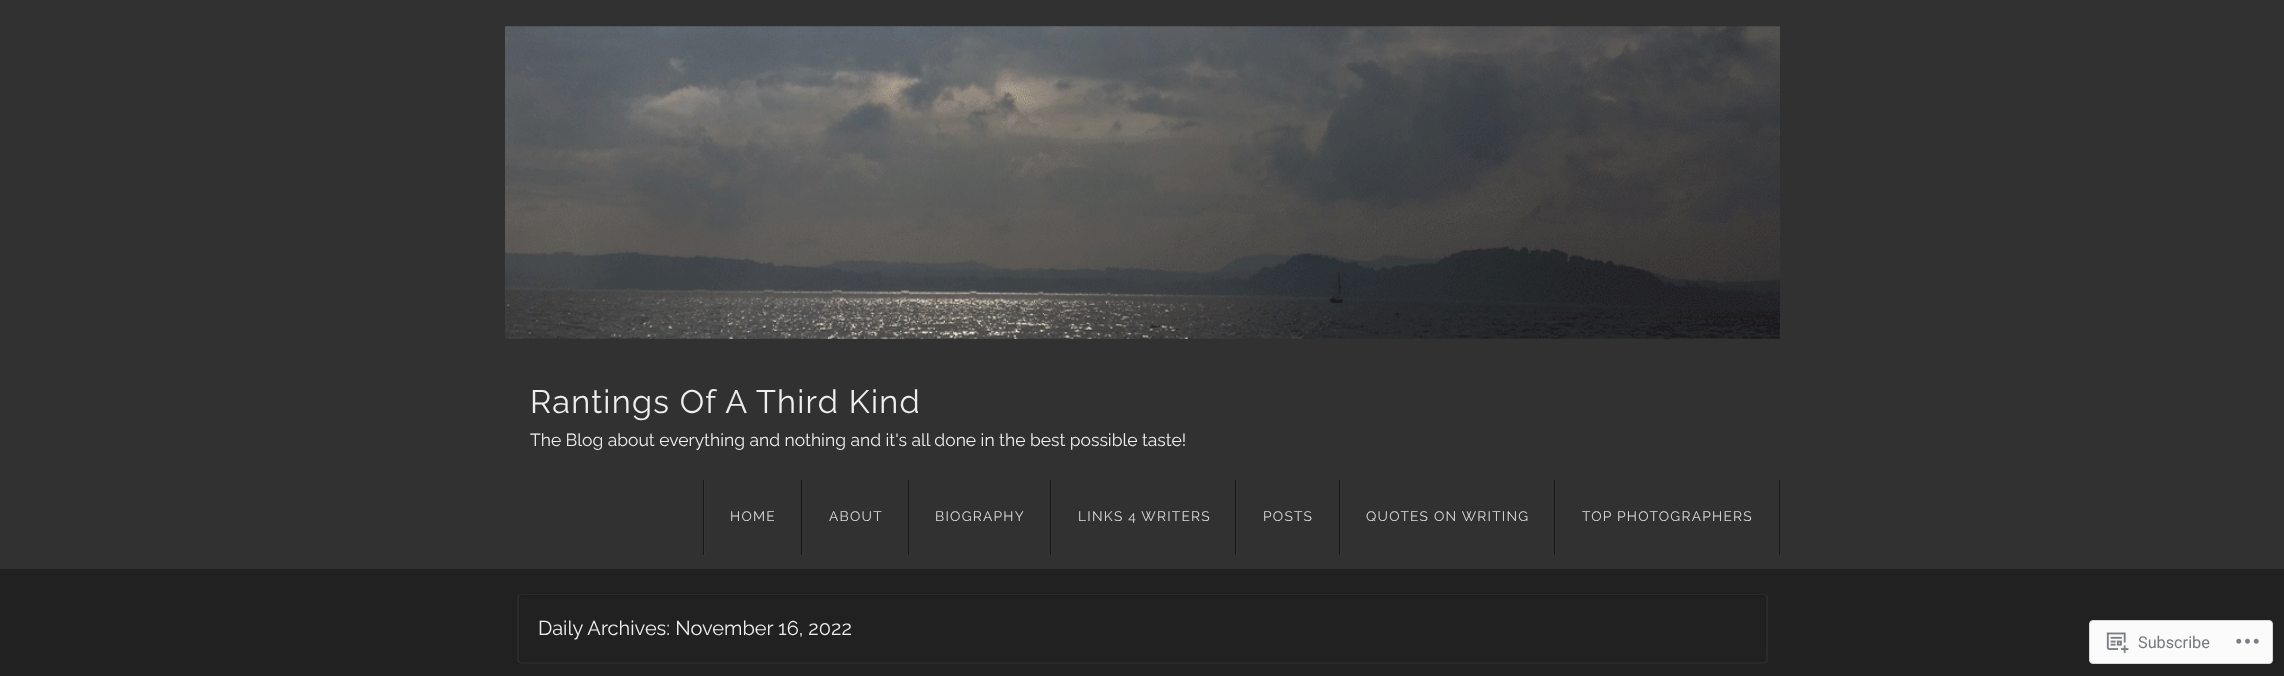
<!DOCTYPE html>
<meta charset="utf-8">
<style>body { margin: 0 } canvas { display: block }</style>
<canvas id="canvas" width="2284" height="676"></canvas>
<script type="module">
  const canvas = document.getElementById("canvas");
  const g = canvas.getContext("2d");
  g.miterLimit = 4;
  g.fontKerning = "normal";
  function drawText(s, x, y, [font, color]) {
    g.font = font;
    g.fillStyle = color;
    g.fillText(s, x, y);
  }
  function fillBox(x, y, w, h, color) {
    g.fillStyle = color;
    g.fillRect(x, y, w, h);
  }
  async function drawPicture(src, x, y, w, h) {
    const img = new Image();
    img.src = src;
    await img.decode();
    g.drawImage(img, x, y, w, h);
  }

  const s1 = ["32.5px Raleway", "#EEEEEE"];
  const s2 = ["17.5px Raleway", "#EEEEEE"];
  const s3 = ["13.75px Raleway", "#DDDDDD"];
  const s4 = ["20px Raleway", "#EEEEEE"];
  const s5 = ["16.25px Roboto", "#767A80"];

  fillBox(0, 0, 2284, 676, "#212121");
  fillBox(0, 0, 2284, 569, "#313131");
  await drawPicture("pic1.png", 505, 26, 1275, 313);
  g.letterSpacing = "1.25px";
  drawText("Rantings Of A Third Kind", 530, 413, s1);
  g.letterSpacing = "0px";
  drawText("The Blog about everything and nothing and it's all done in the best possible taste!", 530, 446, s2);
  fillBox(1779, 480, 1, 75, "#161616");
  fillBox(703, 480, 1, 75, "#161616");
  fillBox(704, 480, 1, 75, "#363636");
  g.letterSpacing = "1.25px";
  drawText("HOME", 730, 521, s3);
  fillBox(801, 480, 1, 75, "#161616");
  fillBox(803, 480, 1, 75, "#363636");
  drawText("ABOUT", 829, 521, s3);
  fillBox(908, 480, 1, 75, "#161616");
  fillBox(909, 480, 1, 75, "#363636");
  drawText("BIOGRAPHY", 935, 521, s3);
  fillBox(1050, 480, 1, 75, "#161616");
  fillBox(1051, 480, 1, 75, "#363636");
  drawText("LINKS 4 WRITERS", 1078, 521, s3);
  fillBox(1235, 480, 1, 75, "#161616");
  fillBox(1236, 480, 1, 75, "#363636");
  drawText("POSTS", 1263, 521, s3);
  fillBox(1339, 480, 1, 75, "#161616");
  fillBox(1340, 480, 1, 75, "#363636");
  drawText("QUOTES ON WRITING", 1366, 521, s3);
  fillBox(1554, 480, 1, 75, "#161616");
  fillBox(1778, 480, 1, 75, "#363636");
  fillBox(1555, 480, 1, 75, "#363636");
  drawText("TOP PHOTOGRAPHERS", 1582, 521, s3);
  g.fillStyle = "#1E1E1E";
  g.beginPath();
  g.moveTo(522, 595);
  g.bezierCurveTo(520, 595, 519, 596, 519, 598);
  g.lineTo(519, 660);
  g.bezierCurveTo(519, 662, 520, 663, 522, 663);
  g.lineTo(1764, 663);
  g.bezierCurveTo(1765, 663, 1766, 662, 1766, 660);
  g.lineTo(1766, 598);
  g.bezierCurveTo(1766, 596, 1765, 595, 1764, 595);
  g.closePath();
  g.moveTo(521, 598);
  g.lineTo(520, 599);
  g.lineTo(520, 661);
  g.lineTo(521, 662);
  g.lineTo(1764, 662);
  g.bezierCurveTo(1765, 662, 1765, 661, 1766, 660);
  g.lineTo(1765, 642);
  g.lineTo(1765, 598);
  g.closePath();
  g.fill("evenodd");
  g.beginPath();
  g.moveTo(519, 595.5);
  g.lineTo(521, 594.5);
  g.lineTo(1764, 594.5);
  g.lineTo(1766, 595.5);
  g.strokeStyle = "#292929";
  g.lineWidth = 1.2;
  g.stroke();
  g.beginPath();
  g.moveTo(1766, 595.5);
  g.lineTo(1767, 597.5);
  g.lineTo(1767, 660);
  g.lineTo(1766, 662);
  g.lineTo(1764, 663);
  g.lineTo(521, 663);
  g.lineTo(519, 662);
  g.lineTo(518, 660);
  g.lineTo(518, 597.5);
  g.lineTo(519, 595.5);
  g.strokeStyle = "#333333";
  g.stroke();
  g.letterSpacing = "0px";
  drawText("Daily Archives: November 16, 2022", 538, 635, s4);
  g.fillStyle = "#FBFBFB";
  g.beginPath();
  g.roundRect(2089.5, 620.5, 183, 43, 3.5);
  g.fill();
  g.strokeStyle = "#D8D8DA";
  g.lineWidth = 1;
  g.stroke();
  await drawPicture("pic2.png", 2106, 632, 23, 21);
  drawText("Subscribe", 2138, 648, s5);
  await drawPicture("pic3.png", 2236, 638, 23, 6);
</script>
